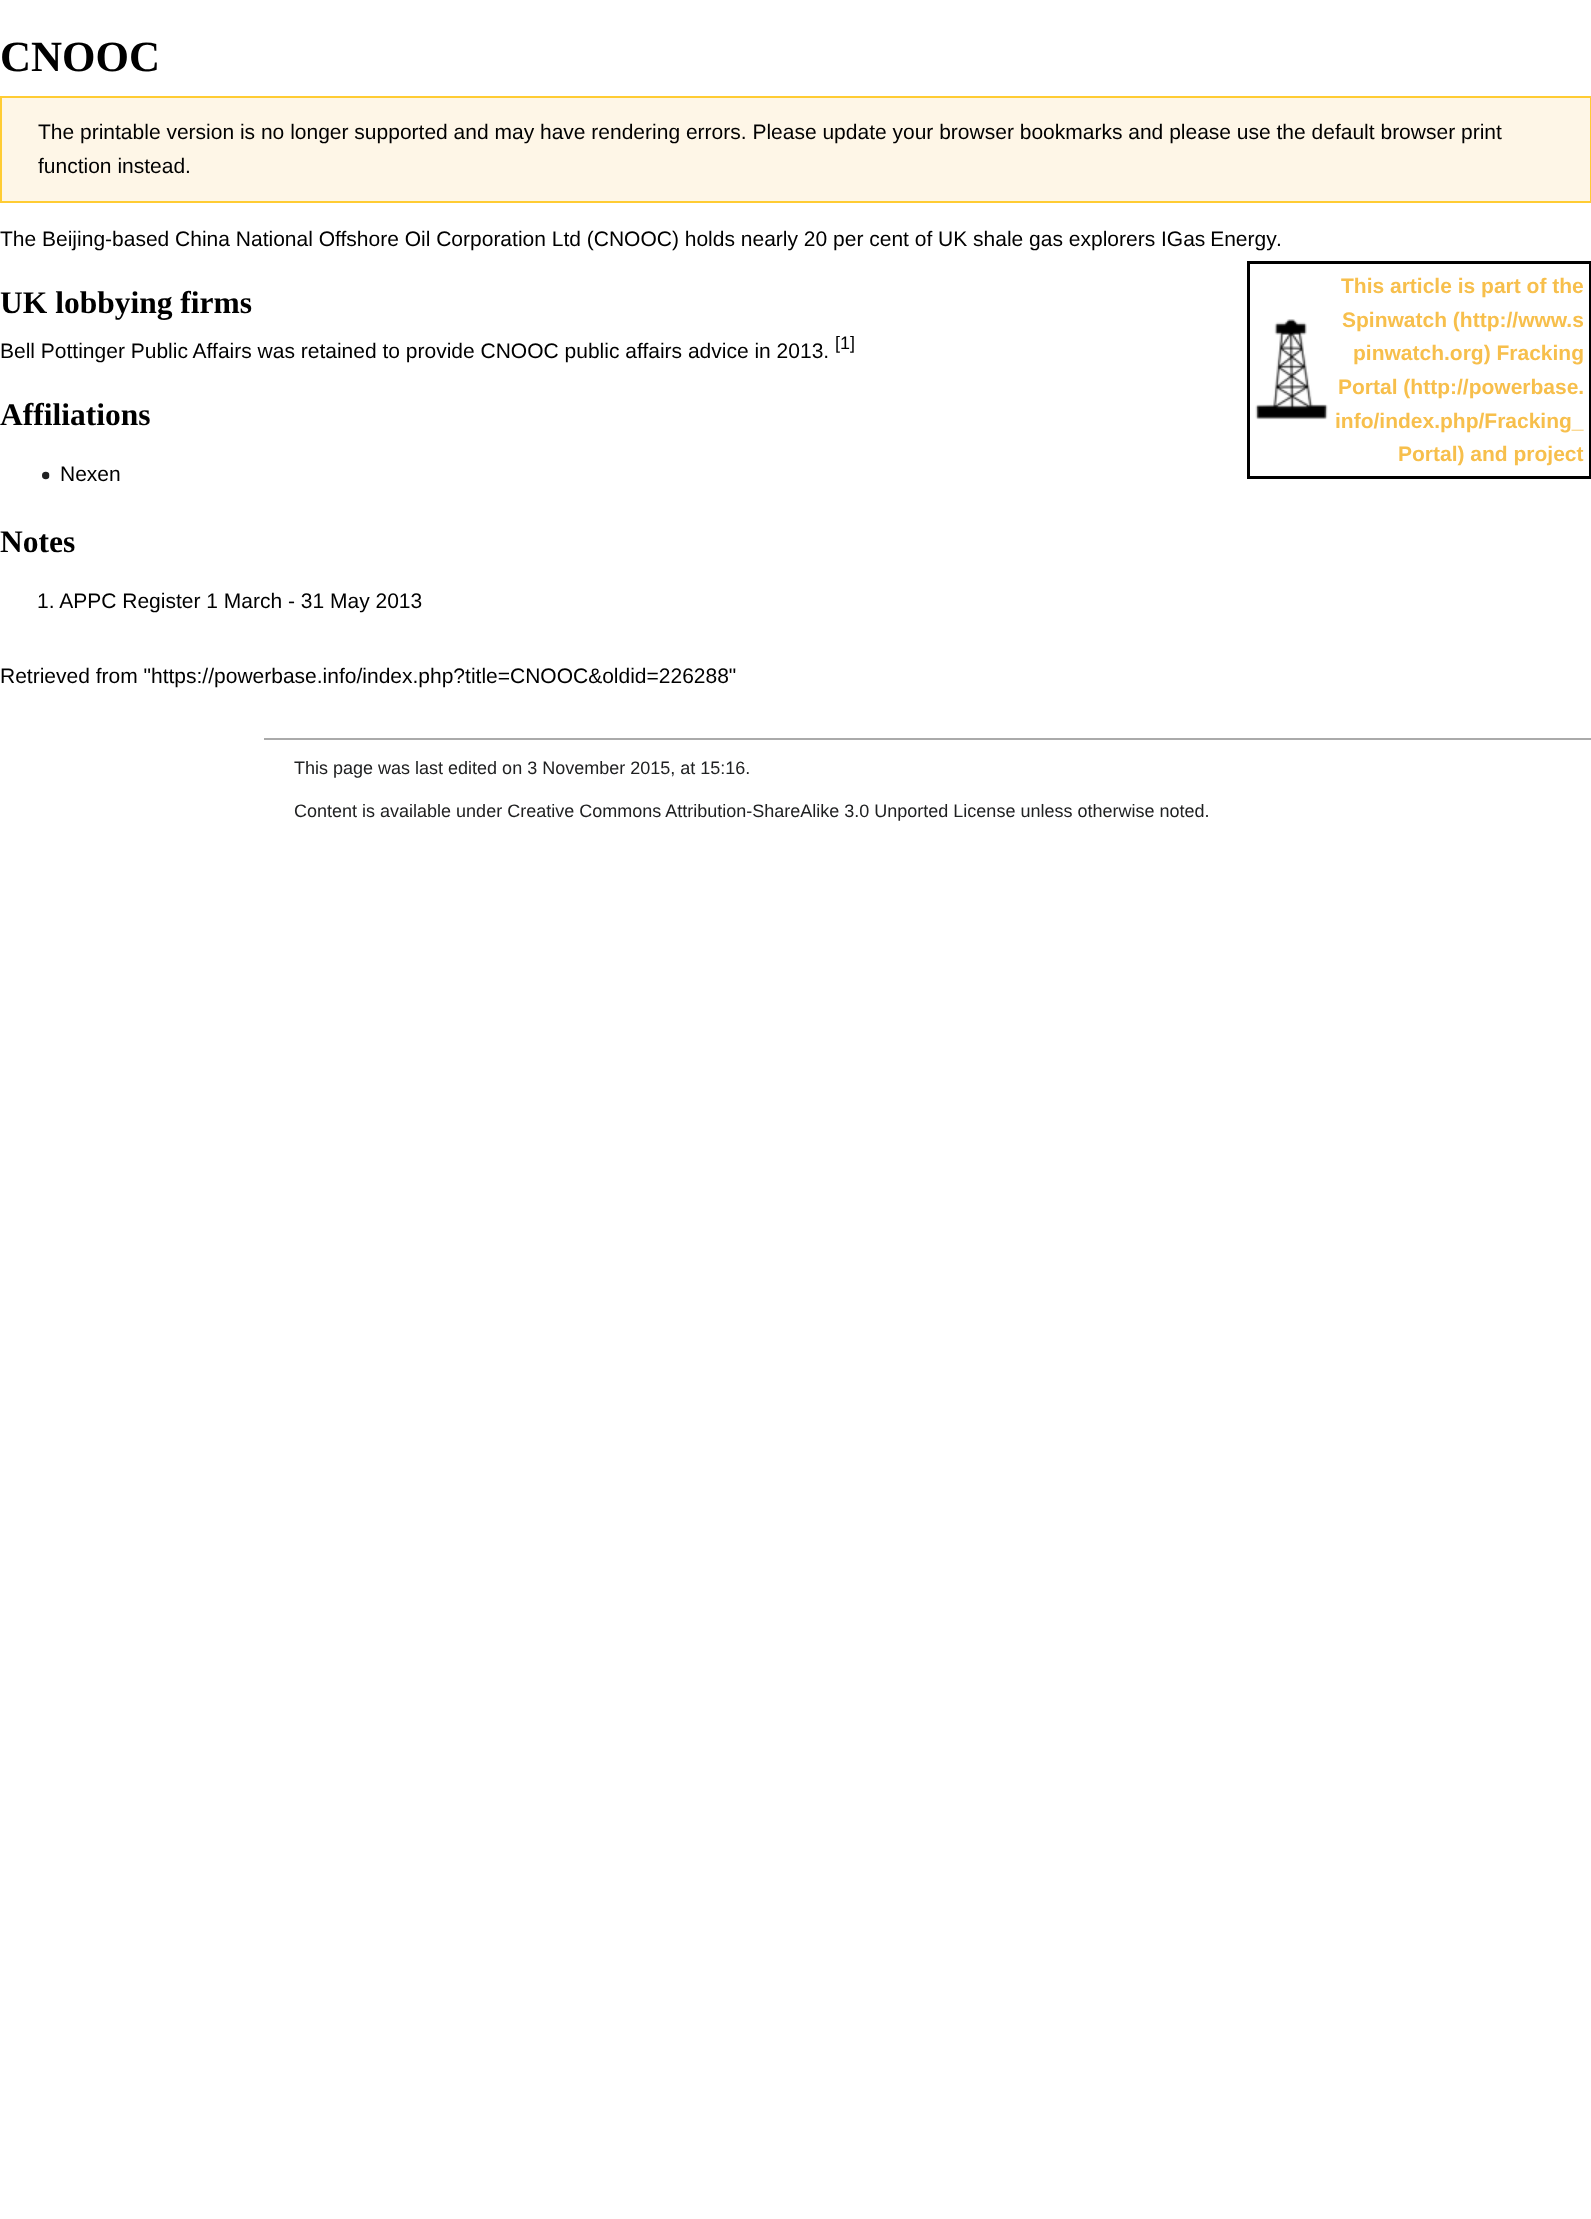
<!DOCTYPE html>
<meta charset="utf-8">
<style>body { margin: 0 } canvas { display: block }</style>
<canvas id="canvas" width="1591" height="2219"></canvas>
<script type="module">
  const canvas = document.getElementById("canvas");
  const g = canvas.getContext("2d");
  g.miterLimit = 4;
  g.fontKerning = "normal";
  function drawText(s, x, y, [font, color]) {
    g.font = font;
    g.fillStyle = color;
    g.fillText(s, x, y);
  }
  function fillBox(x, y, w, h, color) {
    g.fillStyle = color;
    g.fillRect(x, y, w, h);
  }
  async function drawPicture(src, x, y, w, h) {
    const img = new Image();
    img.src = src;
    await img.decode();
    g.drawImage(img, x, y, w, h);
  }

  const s1 = ["bold 43px Liberation Serif", "#000000"];
  const s2 = ["21px Liberation Sans", "#000000"];
  const s3 = ["bold 31.5px Liberation Serif", "#000000"];
  const s4 = ["bold 21px Liberation Sans", "#F7BF4C"];
  const s5 = ["18px Liberation Sans", "#000000"];
  const s6 = ["18px Liberation Sans", "#202122"];

  fillBox(0, 0, 1591, 2219, "#FFFFFF");
  drawText("CNOOC", 0, 71, s1);
  g.fillStyle = "#FEF6E7";
  g.beginPath();
  g.rect(1, 97, 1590, 105);
  g.fill();
  g.strokeStyle = "#FFCC33";
  g.lineWidth = 2;
  g.stroke();
  drawText("The printable version is no longer supported and may have rendering errors. Please update your browser bookmarks and please use the default browser print", 38, 139, s2);
  drawText("function instead.", 38, 173, s2);
  drawText("The Beijing-based China National Offshore Oil Corporation Ltd (CNOOC) holds nearly 20 per cent of UK shale gas explorers", 0, 246, s2);
  g.wordSpacing = "-1px";
  drawText("IGas Energy", 1161, 246, s2);
  g.wordSpacing = "0px";
  drawText(".", 1276, 246, s2);
  drawText("UK lobbying firms", 0, 313, s3);
  g.strokeStyle = "#000000";
  g.lineWidth = 3;
  g.strokeRect(1248.5, 262.5, 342, 215);
  await drawPicture("pic1.png", 1255, 319, 73, 101);
  drawText("This article is part of the", 1341, 293, s4);
  drawText("Spinwatch (http://www.s", 1342, 327, s4);
  drawText("pinwatch.org) Fracking", 1353, 360, s4);
  drawText("Portal (http://powerbase.", 1338, 394, s4);
  drawText("info/index.php/Fracking_", 1335, 428, s4);
  drawText("Portal) and project", 1398, 461, s4);
  drawText("Bell Pottinger Public Affairs was retained to provide CNOOC public affairs advice in 2013.", 0, 358, s2);
  drawText("[1]", 835, 349, s5);
  drawText("Affiliations", 0, 425, s3);
  await drawPicture("pic2.png", 42, 471, 8, 9);
  drawText("Nexen", 60, 481, s2);
  drawText("Notes", 0, 552, s3);
  drawText("1. APPC Register 1 March - 31 May 2013", 37, 608, s2);
  drawText("Retrieved from \"https://powerbase.info/index.php?title=CNOOC&oldid=226288\"", 0, 683, s2);
  fillBox(264, 738, 1327, 2, "#AAAAAA");
  drawText("This page was last edited on 3 November 2015, at 15:16.", 294, 774, s6);
  drawText("Content is available under Creative Commons Attribution-ShareAlike 3.0 Unported License unless otherwise noted.", 294, 817, s6);
</script>
